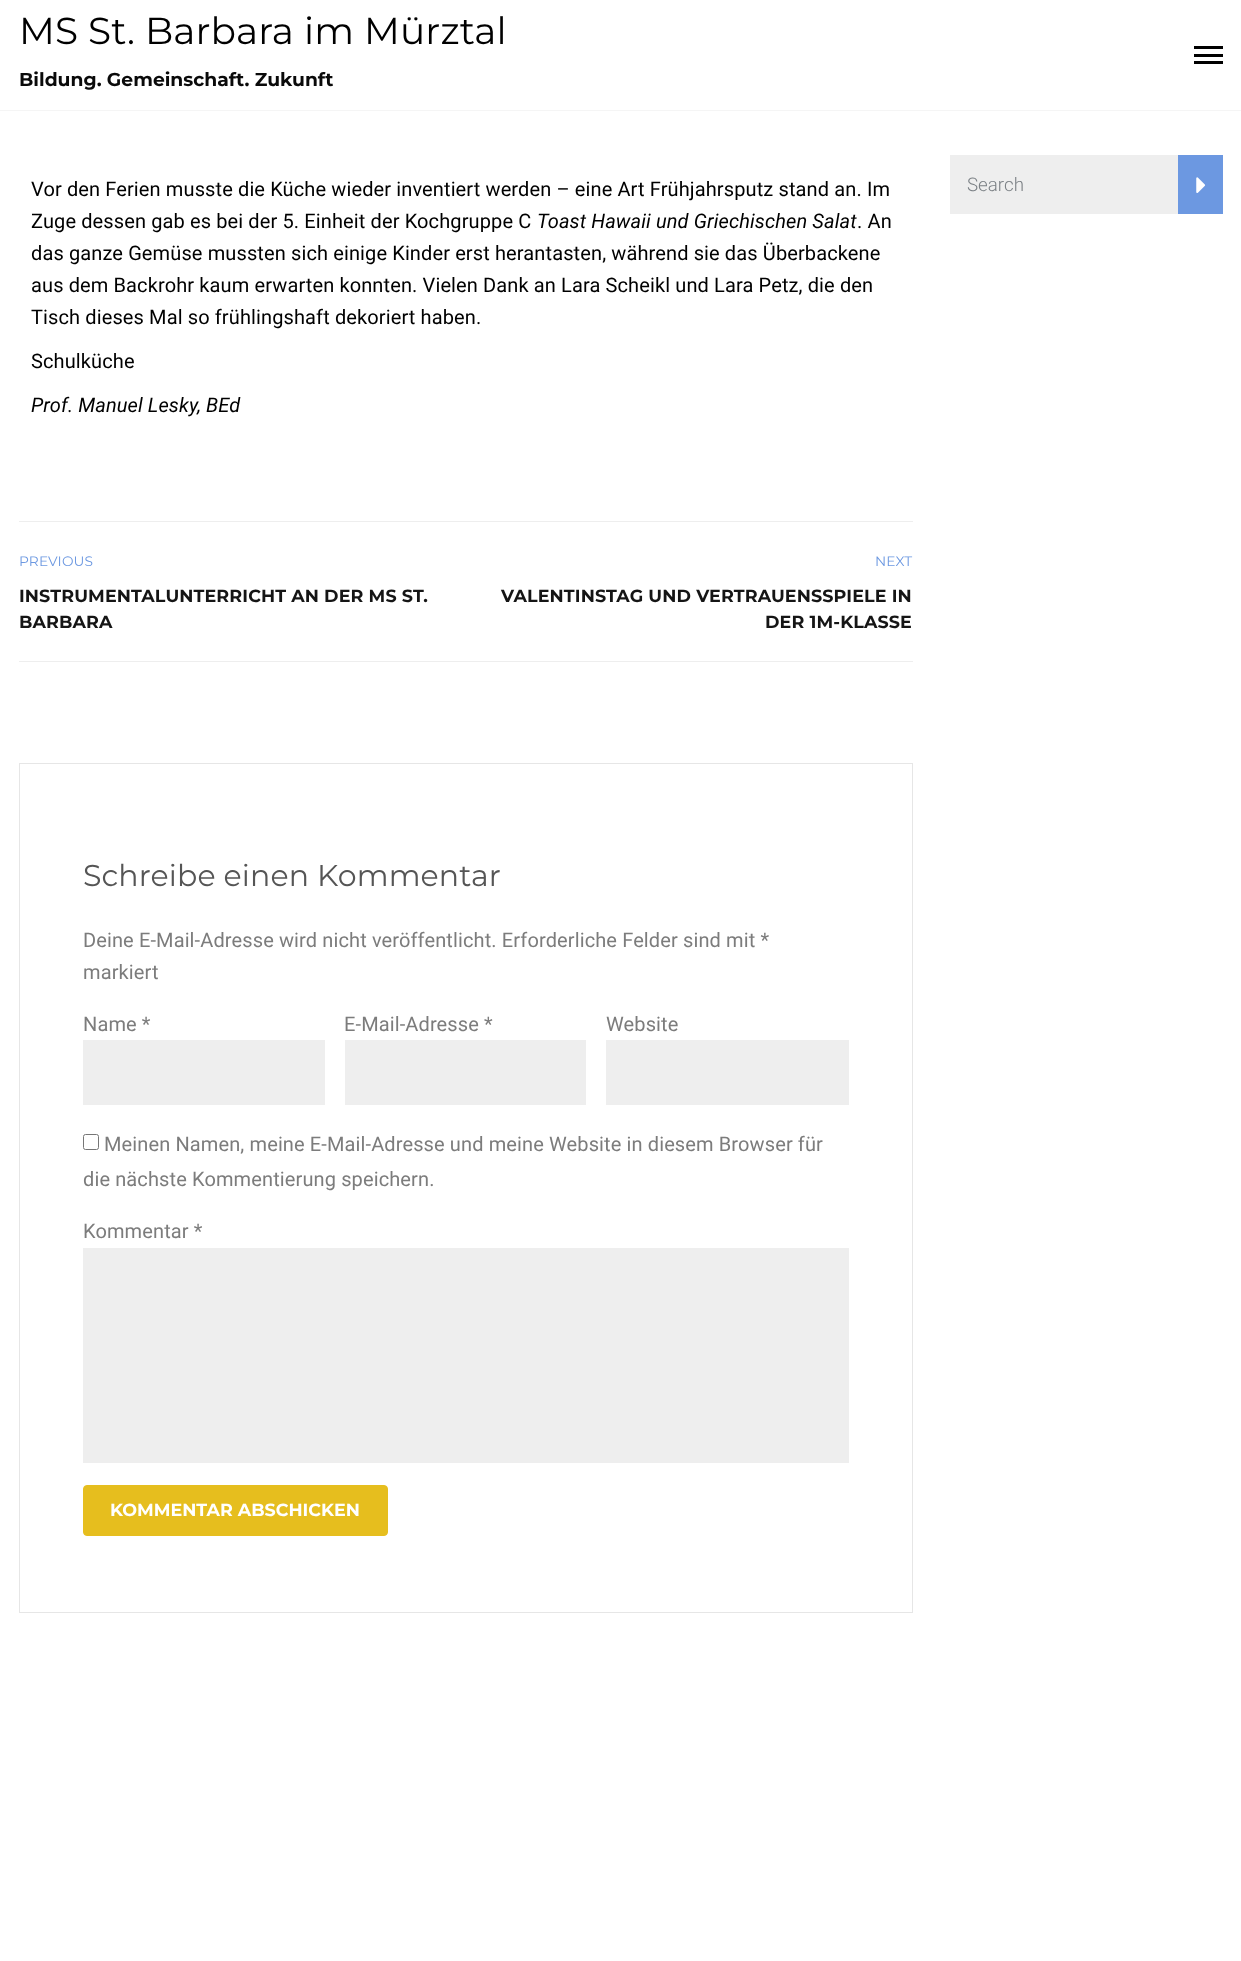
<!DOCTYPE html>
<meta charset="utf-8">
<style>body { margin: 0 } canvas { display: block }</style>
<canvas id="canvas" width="1241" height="1961"></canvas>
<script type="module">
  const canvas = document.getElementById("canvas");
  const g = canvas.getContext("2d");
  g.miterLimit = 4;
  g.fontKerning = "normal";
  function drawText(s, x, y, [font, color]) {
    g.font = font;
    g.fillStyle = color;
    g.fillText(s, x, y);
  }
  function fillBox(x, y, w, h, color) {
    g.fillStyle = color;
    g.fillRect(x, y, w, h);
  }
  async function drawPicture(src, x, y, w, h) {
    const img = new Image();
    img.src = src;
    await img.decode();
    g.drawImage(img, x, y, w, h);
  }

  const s1 = ["37.5px Montserrat", "#000000"];
  const s2 = ["bold 18.75px Montserrat", "#0A0A0A"];
  const s3 = ["20px Roboto", "#000000"];
  const s4 = ["italic 20px Roboto", "#000000"];
  const s5 = ["13.75px Montserrat", "#6C98E1"];
  const s6 = ["bold 17.5px Montserrat", "#151515"];
  const s7 = ["30px Montserrat", "#555555"];
  const s8 = ["20px Roboto", "#7C7C7C"];
  const s9 = ["bold 17.5px Montserrat", "#FFFFFF"];
  const s10 = ["300 18.75px Roboto", "#7B8085"];

  fillBox(0, 0, 1241, 1961, "#FFFFFF");
  fillBox(0, 110, 1241, 1, "#F5F5F5");
  g.letterSpacing = "0.12px";
  drawText("MS St. Barbara im Mürztal", 19, 44, s1);
  g.letterSpacing = "0px";
  drawText("Bildung. Gemeinschaft. Zukunft", 19, 86, s2);
  fillBox(1194, 46, 29, 3, "#000000");
  fillBox(1194, 54, 29, 3, "#000000");
  fillBox(1194, 61, 29, 3, "#000000");
  g.letterSpacing = "0.12px";
  drawText("Vor den Ferien musste die Küche wieder inventiert werden – eine Art Frühjahrsputz stand an. Im", 31, 196, s3);
  drawText("Zuge dessen gab es bei der 5. Einheit der Kochgruppe C", 31, 228, s3);
  drawText("Toast Hawaii und Griechischen Salat", 537, 228, s4);
  drawText(". An", 857, 228, s3);
  drawText("das ganze Gemüse mussten sich einige Kinder erst herantasten, während sie das Überbackene", 31, 260, s3);
  drawText("aus dem Backrohr kaum erwarten konnten. Vielen Dank an Lara Scheikl und Lara Petz, die den", 31, 292, s3);
  drawText("Tisch dieses Mal so frühlingshaft dekoriert haben.", 31, 324, s3);
  drawText("Schulküche", 31, 368, s3);
  drawText("Prof. Manuel Lesky, BEd", 31, 412, s4);
  fillBox(19, 521, 894, 1, "#EEEEEE");
  fillBox(19, 661, 894, 1, "#EEEEEE");
  drawText("PREVIOUS", 19, 566, s5);
  drawText("INSTRUMENTALUNTERRICHT AN DER MS ST.", 19, 602, s6);
  drawText("BARBARA", 19, 628, s6);
  drawText("NEXT", 875, 566, s5);
  drawText("VALENTINSTAG UND VERTRAUENSSPIELE IN", 501, 602, s6);
  drawText("DER 1M-KLASSE", 765, 628, s6);
  g.strokeStyle = "#E6E6E6";
  g.strokeRect(19.5, 763.5, 893, 849);
  drawText("Schreibe einen Kommentar", 83, 886, s7);
  drawText("Deine E-Mail-Adresse wird nicht veröffentlicht. Erforderliche Felder sind mit *", 83, 947, s8);
  drawText("markiert", 83, 979, s8);
  drawText("Name *", 83, 1031, s8);
  fillBox(83, 1040, 242, 65, "#EEEEEE");
  drawText("E-Mail-Adresse *", 344, 1031, s8);
  fillBox(345, 1040, 241, 65, "#EEEEEE");
  drawText("Website", 606, 1031, s8);
  fillBox(606, 1040, 243, 65, "#EEEEEE");
  g.beginPath();
  g.roundRect(83.5, 1134.5, 15, 15, 2);
  g.strokeStyle = "#767676";
  g.stroke();
  drawText("Meinen Namen, meine E-Mail-Adresse und meine Website in diesem Browser für", 104, 1151, s8);
  drawText("die nächste Kommentierung speichern.", 83, 1186, s8);
  drawText("Kommentar *", 83, 1238, s8);
  fillBox(83, 1248, 766, 215, "#EEEEEE");
  g.fillStyle = "#E6BE1E";
  g.beginPath();
  g.roundRect(83.5, 1485.5, 304, 50, 3.5);
  g.fill();
  g.strokeStyle = "#E6BE1E";
  g.stroke();
  g.letterSpacing = "0px";
  drawText("KOMMENTAR ABSCHICKEN", 110, 1516, s9);
  fillBox(950, 155, 228, 59, "#EEEEEE");
  drawText("Search", 967, 191, s10);
  fillBox(1178, 155, 45, 59, "#6C98E1");
  await drawPicture("pic1.png", 1196, 177, 10, 16);
</script>
